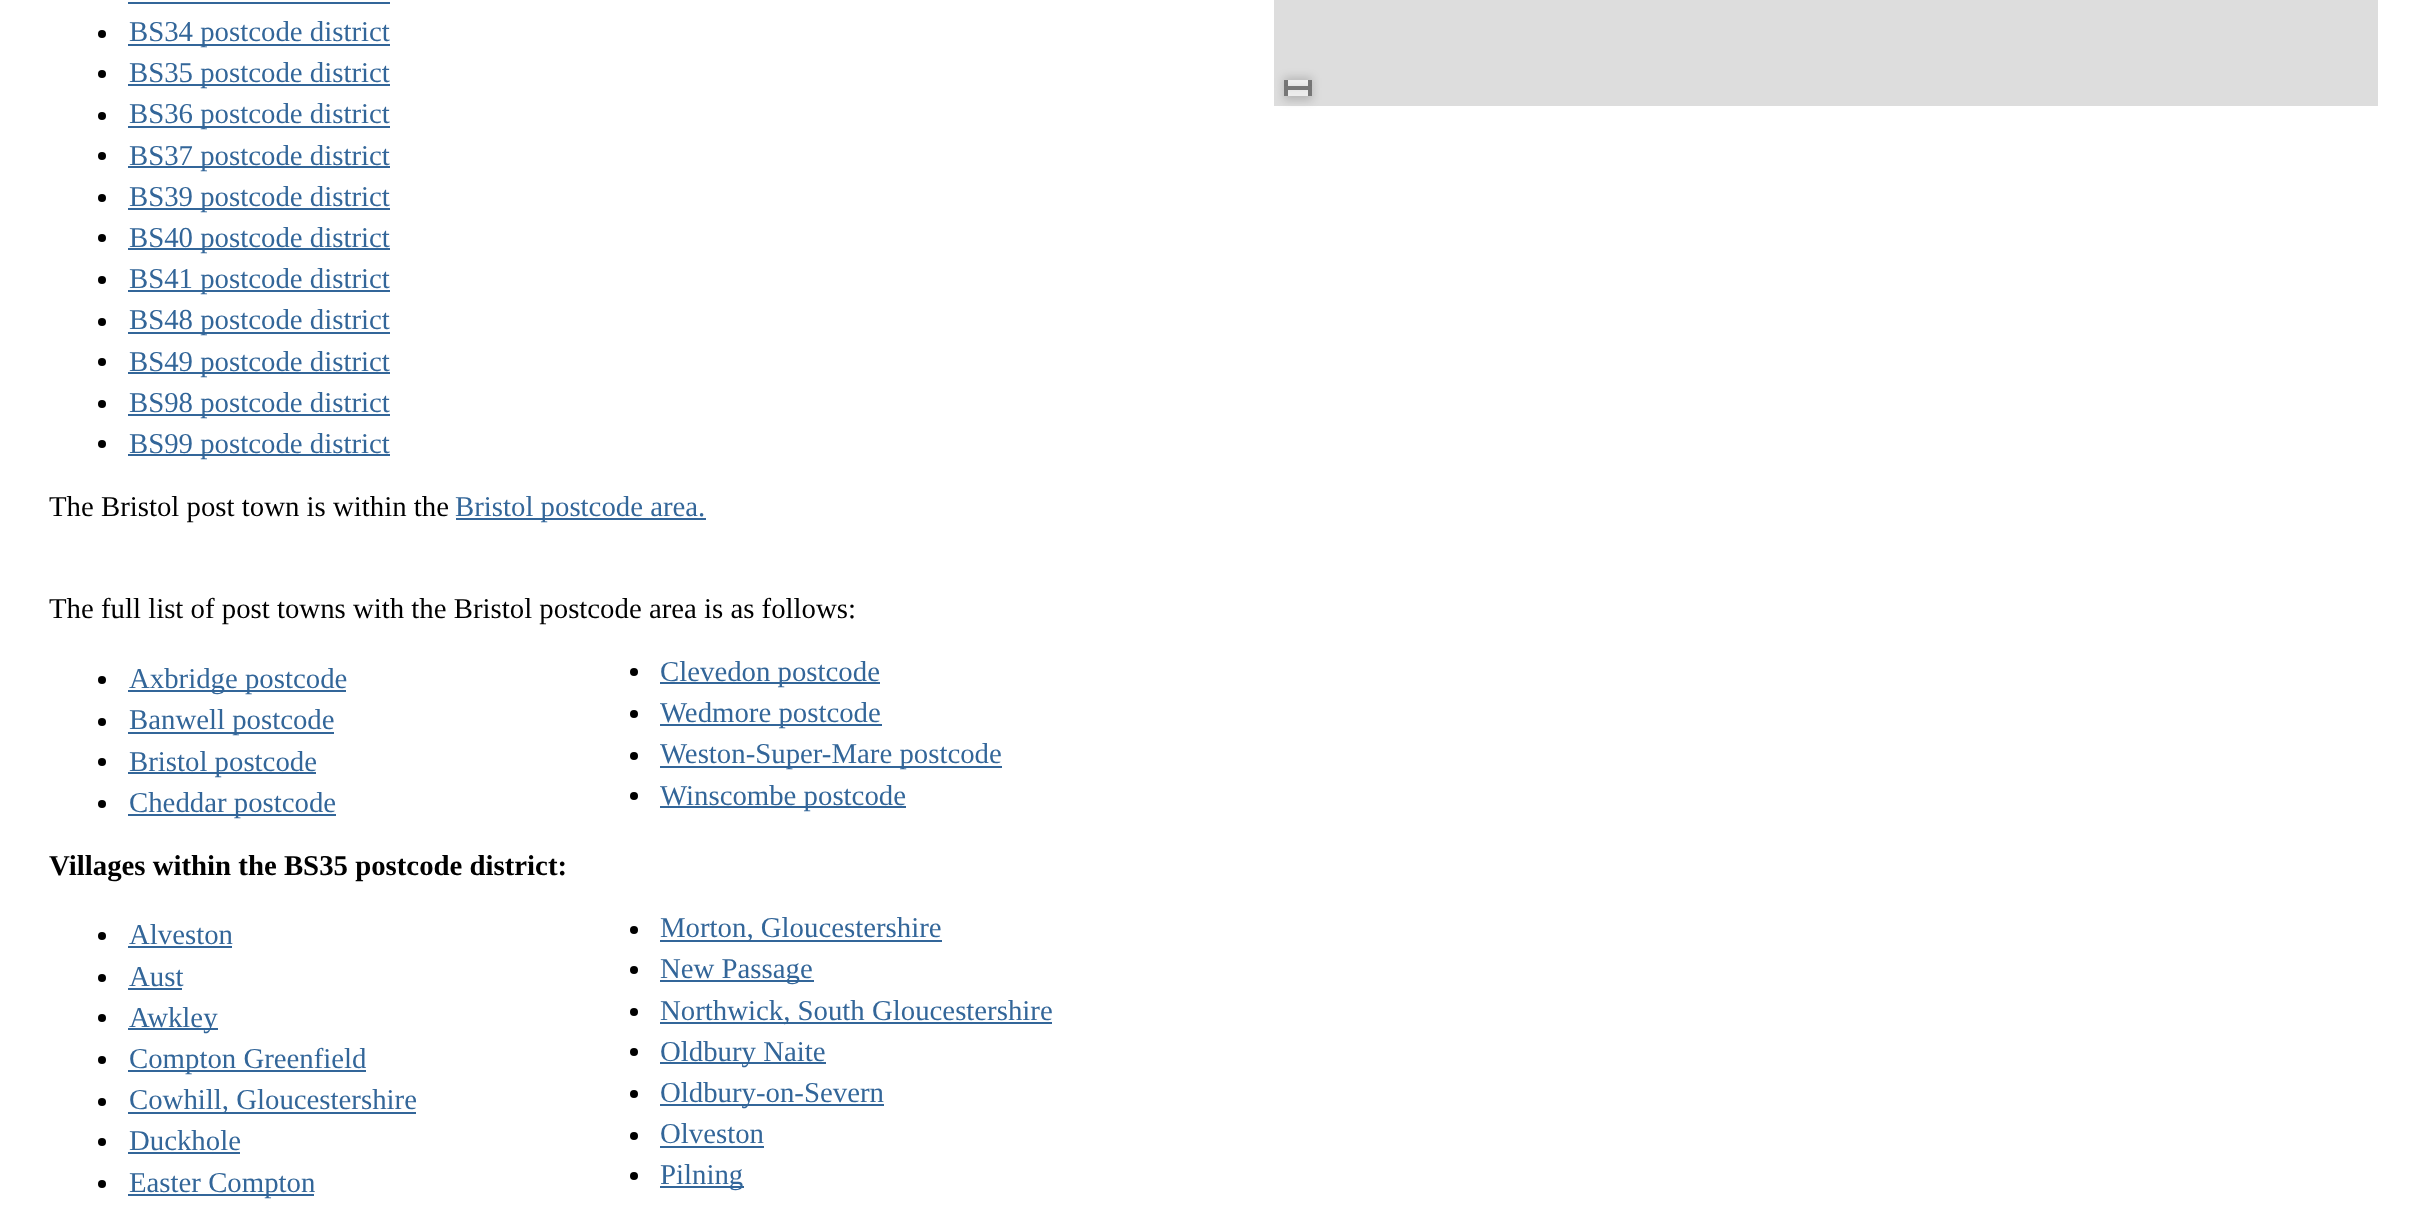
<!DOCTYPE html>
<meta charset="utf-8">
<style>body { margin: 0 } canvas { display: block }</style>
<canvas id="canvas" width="2426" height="1205"></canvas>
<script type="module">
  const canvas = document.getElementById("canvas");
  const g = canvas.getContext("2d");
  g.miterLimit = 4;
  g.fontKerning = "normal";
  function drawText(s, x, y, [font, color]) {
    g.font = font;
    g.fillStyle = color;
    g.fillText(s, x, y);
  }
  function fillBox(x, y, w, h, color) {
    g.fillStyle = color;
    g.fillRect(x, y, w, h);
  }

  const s1 = ["28.8px Liberation Serif", "#336699"];
  const s2 = ["28.8px Liberation Serif", "#000000"];
  const s3 = ["bold 28.8px Liberation Serif", "#000000"];

  fillBox(0, 0, 2426, 1205, "#FFFFFF");
  fillBox(128, 2, 262, 2, "#336699");
  g.fillStyle = "#000000";
  g.beginPath();
  g.arc(102, 34, 4, 0, Math.PI * 2);
  g.fill();
  fillBox(128, 44, 262, 2, "#336699");
  drawText("BS34 postcode district", 129, 41, s1);
  g.fillStyle = "#000000";
  g.beginPath();
  g.arc(102, 74, 4, 0, Math.PI * 2);
  g.fill();
  fillBox(128, 84, 262, 2, "#336699");
  drawText("BS35 postcode district", 129, 82, s1);
  g.fillStyle = "#000000";
  g.beginPath();
  g.arc(102, 116, 4, 0, Math.PI * 2);
  g.fill();
  fillBox(128, 126, 262, 2, "#336699");
  drawText("BS36 postcode district", 129, 123, s1);
  g.fillStyle = "#000000";
  g.beginPath();
  g.arc(102, 156, 4, 0, Math.PI * 2);
  g.fill();
  fillBox(128, 166, 262, 2, "#336699");
  drawText("BS37 postcode district", 129, 165, s1);
  g.fillStyle = "#000000";
  g.beginPath();
  g.arc(102, 198, 4, 0, Math.PI * 2);
  g.fill();
  fillBox(128, 208, 262, 2, "#336699");
  drawText("BS39 postcode district", 129, 206, s1);
  g.fillStyle = "#000000";
  g.beginPath();
  g.arc(102, 238, 4, 0, Math.PI * 2);
  g.fill();
  fillBox(128, 248, 262, 2, "#336699");
  drawText("BS40 postcode district", 129, 247, s1);
  g.fillStyle = "#000000";
  g.beginPath();
  g.arc(102, 280, 4, 0, Math.PI * 2);
  g.fill();
  fillBox(128, 290, 262, 2, "#336699");
  drawText("BS41 postcode district", 129, 288, s1);
  g.fillStyle = "#000000";
  g.beginPath();
  g.arc(102, 322, 4, 0, Math.PI * 2);
  g.fill();
  fillBox(128, 332, 262, 2, "#336699");
  drawText("BS48 postcode district", 129, 329, s1);
  g.fillStyle = "#000000";
  g.beginPath();
  g.arc(102, 362, 4, 0, Math.PI * 2);
  g.fill();
  fillBox(128, 372, 262, 2, "#336699");
  drawText("BS49 postcode district", 129, 371, s1);
  g.fillStyle = "#000000";
  g.beginPath();
  g.arc(102, 404, 4, 0, Math.PI * 2);
  g.fill();
  fillBox(128, 414, 262, 2, "#336699");
  drawText("BS98 postcode district", 129, 412, s1);
  g.fillStyle = "#000000";
  g.beginPath();
  g.arc(102, 444, 4, 0, Math.PI * 2);
  g.fill();
  fillBox(128, 454, 262, 2, "#336699");
  drawText("BS99 postcode district", 129, 453, s1);
  drawText("The Bristol post town is within the", 49, 516, s2);
  fillBox(456, 518, 250, 2, "#336699");
  drawText("Bristol postcode area.", 455, 516, s1);
  drawText("The full list of post towns with the Bristol postcode area is as follows:", 49, 618, s2);
  g.beginPath();
  g.arc(102, 680, 4, 0, Math.PI * 2);
  g.fill();
  fillBox(128, 690, 218, 2, "#336699");
  drawText("Axbridge postcode", 129, 688, s1);
  g.fillStyle = "#000000";
  g.beginPath();
  g.arc(634, 672, 4, 0, Math.PI * 2);
  g.fill();
  fillBox(660, 682, 220, 2, "#336699");
  drawText("Clevedon postcode", 660, 681, s1);
  g.fillStyle = "#000000";
  g.beginPath();
  g.arc(102, 722, 4, 0, Math.PI * 2);
  g.fill();
  fillBox(128, 732, 206, 2, "#336699");
  drawText("Banwell postcode", 129, 729, s1);
  g.fillStyle = "#000000";
  g.beginPath();
  g.arc(634, 714, 4, 0, Math.PI * 2);
  g.fill();
  fillBox(660, 724, 222, 2, "#336699");
  drawText("Wedmore postcode", 660, 722, s1);
  g.fillStyle = "#000000";
  g.beginPath();
  g.arc(102, 762, 4, 0, Math.PI * 2);
  g.fill();
  fillBox(128, 772, 188, 2, "#336699");
  drawText("Bristol postcode", 129, 771, s1);
  g.fillStyle = "#000000";
  g.beginPath();
  g.arc(634, 756, 4, 0, Math.PI * 2);
  g.fill();
  fillBox(660, 766, 342, 2, "#336699");
  drawText("Weston-Super-Mare postcode", 660, 763, s1);
  g.fillStyle = "#000000";
  g.beginPath();
  g.arc(102, 804, 4, 0, Math.PI * 2);
  g.fill();
  fillBox(128, 814, 208, 2, "#336699");
  drawText("Cheddar postcode", 129, 812, s1);
  g.fillStyle = "#000000";
  g.beginPath();
  g.arc(634, 796, 4, 0, Math.PI * 2);
  g.fill();
  fillBox(660, 806, 246, 2, "#336699");
  drawText("Winscombe postcode", 660, 805, s1);
  drawText("Villages within the BS35 postcode district:", 49, 875, s3);
  g.beginPath();
  g.arc(102, 936, 4, 0, Math.PI * 2);
  g.fill();
  drawText("Alveston", 129, 944, s1);
  fillBox(128, 946, 104, 2, "#336699");
  g.fillStyle = "#000000";
  g.beginPath();
  g.arc(634, 930, 4, 0, Math.PI * 2);
  g.fill();
  fillBox(660, 940, 282, 2, "#336699");
  drawText("Morton, Gloucestershire", 660, 937, s1);
  g.fillStyle = "#000000";
  g.beginPath();
  g.arc(102, 978, 4, 0, Math.PI * 2);
  g.fill();
  drawText("Aust", 129, 986, s1);
  fillBox(128, 988, 54, 2, "#336699");
  g.fillStyle = "#000000";
  g.beginPath();
  g.arc(634, 970, 4, 0, Math.PI * 2);
  g.fill();
  fillBox(660, 980, 154, 2, "#336699");
  drawText("New Passage", 660, 978, s1);
  g.fillStyle = "#000000";
  g.beginPath();
  g.arc(102, 1018, 4, 0, Math.PI * 2);
  g.fill();
  fillBox(128, 1028, 90, 2, "#336699");
  drawText("Awkley", 129, 1027, s1);
  g.fillStyle = "#000000";
  g.beginPath();
  g.arc(634, 1012, 4, 0, Math.PI * 2);
  g.fill();
  fillBox(660, 1022, 392, 2, "#336699");
  drawText("Northwick, South Gloucestershire", 660, 1020, s1);
  g.fillStyle = "#000000";
  g.beginPath();
  g.arc(102, 1060, 4, 0, Math.PI * 2);
  g.fill();
  fillBox(128, 1070, 238, 2, "#336699");
  drawText("Compton Greenfield", 129, 1068, s1);
  g.fillStyle = "#000000";
  g.beginPath();
  g.arc(634, 1052, 4, 0, Math.PI * 2);
  g.fill();
  fillBox(660, 1062, 166, 2, "#336699");
  drawText("Oldbury Naite", 660, 1061, s1);
  g.fillStyle = "#000000";
  g.beginPath();
  g.arc(102, 1102, 4, 0, Math.PI * 2);
  g.fill();
  fillBox(128, 1112, 288, 2, "#336699");
  drawText("Cowhill, Gloucestershire", 129, 1109, s1);
  g.fillStyle = "#000000";
  g.beginPath();
  g.arc(634, 1094, 4, 0, Math.PI * 2);
  g.fill();
  fillBox(660, 1104, 224, 2, "#336699");
  drawText("Oldbury-on-Severn", 660, 1102, s1);
  g.fillStyle = "#000000";
  g.beginPath();
  g.arc(102, 1142, 4, 0, Math.PI * 2);
  g.fill();
  drawText("Duckhole", 129, 1150, s1);
  fillBox(128, 1152, 112, 2, "#336699");
  g.fillStyle = "#000000";
  g.beginPath();
  g.arc(634, 1136, 4, 0, Math.PI * 2);
  g.fill();
  drawText("Olveston", 660, 1143, s1);
  fillBox(660, 1146, 104, 2, "#336699");
  g.fillStyle = "#000000";
  g.beginPath();
  g.arc(102, 1184, 4, 0, Math.PI * 2);
  g.fill();
  fillBox(128, 1194, 186, 2, "#336699");
  drawText("Easter Compton", 129, 1192, s1);
  g.fillStyle = "#000000";
  g.beginPath();
  g.arc(634, 1176, 4, 0, Math.PI * 2);
  g.fill();
  fillBox(660, 1186, 84, 2, "#336699");
  drawText("Pilning", 660, 1184, s1);
  fillBox(1274, 0, 1104, 106, "#DDDDDD");
  g.fillStyle = "rgba(0, 0, 0, 0.2)";
  g.filter = "blur(5px)";
  g.beginPath();
  g.rect(1284, 78, 28, 10);
  g.fill();
  g.filter = "none";
  fillBox(1288, 80, 20, 6, "#EEEEEE");
  fillBox(1308, 80, 4, 10, "#777777");
  fillBox(1284, 80, 4, 10, "#777777");
  g.save();
  g.beginPath();
  g.moveTo(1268, 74);
  g.lineTo(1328, 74);
  g.lineTo(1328, 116);
  g.lineTo(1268, 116);
  g.closePath();
  g.moveTo(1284, 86);
  g.lineTo(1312, 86);
  g.lineTo(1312, 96);
  g.lineTo(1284, 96);
  g.closePath();
  g.clip("evenodd");
  g.fillStyle = "rgba(0, 0, 0, 0.2)";
  g.filter = "blur(5px)";
  g.beginPath();
  g.rect(1284, 90, 28, 10);
  g.fill();
  g.filter = "none";
  g.restore();
  fillBox(1288, 90, 20, 6, "rgba(255, 255, 255, 0.5)");
  fillBox(1284, 86, 28, 4, "#777777");
  fillBox(1308, 86, 4, 10, "#777777");
  fillBox(1284, 86, 4, 10, "#777777");
</script>
